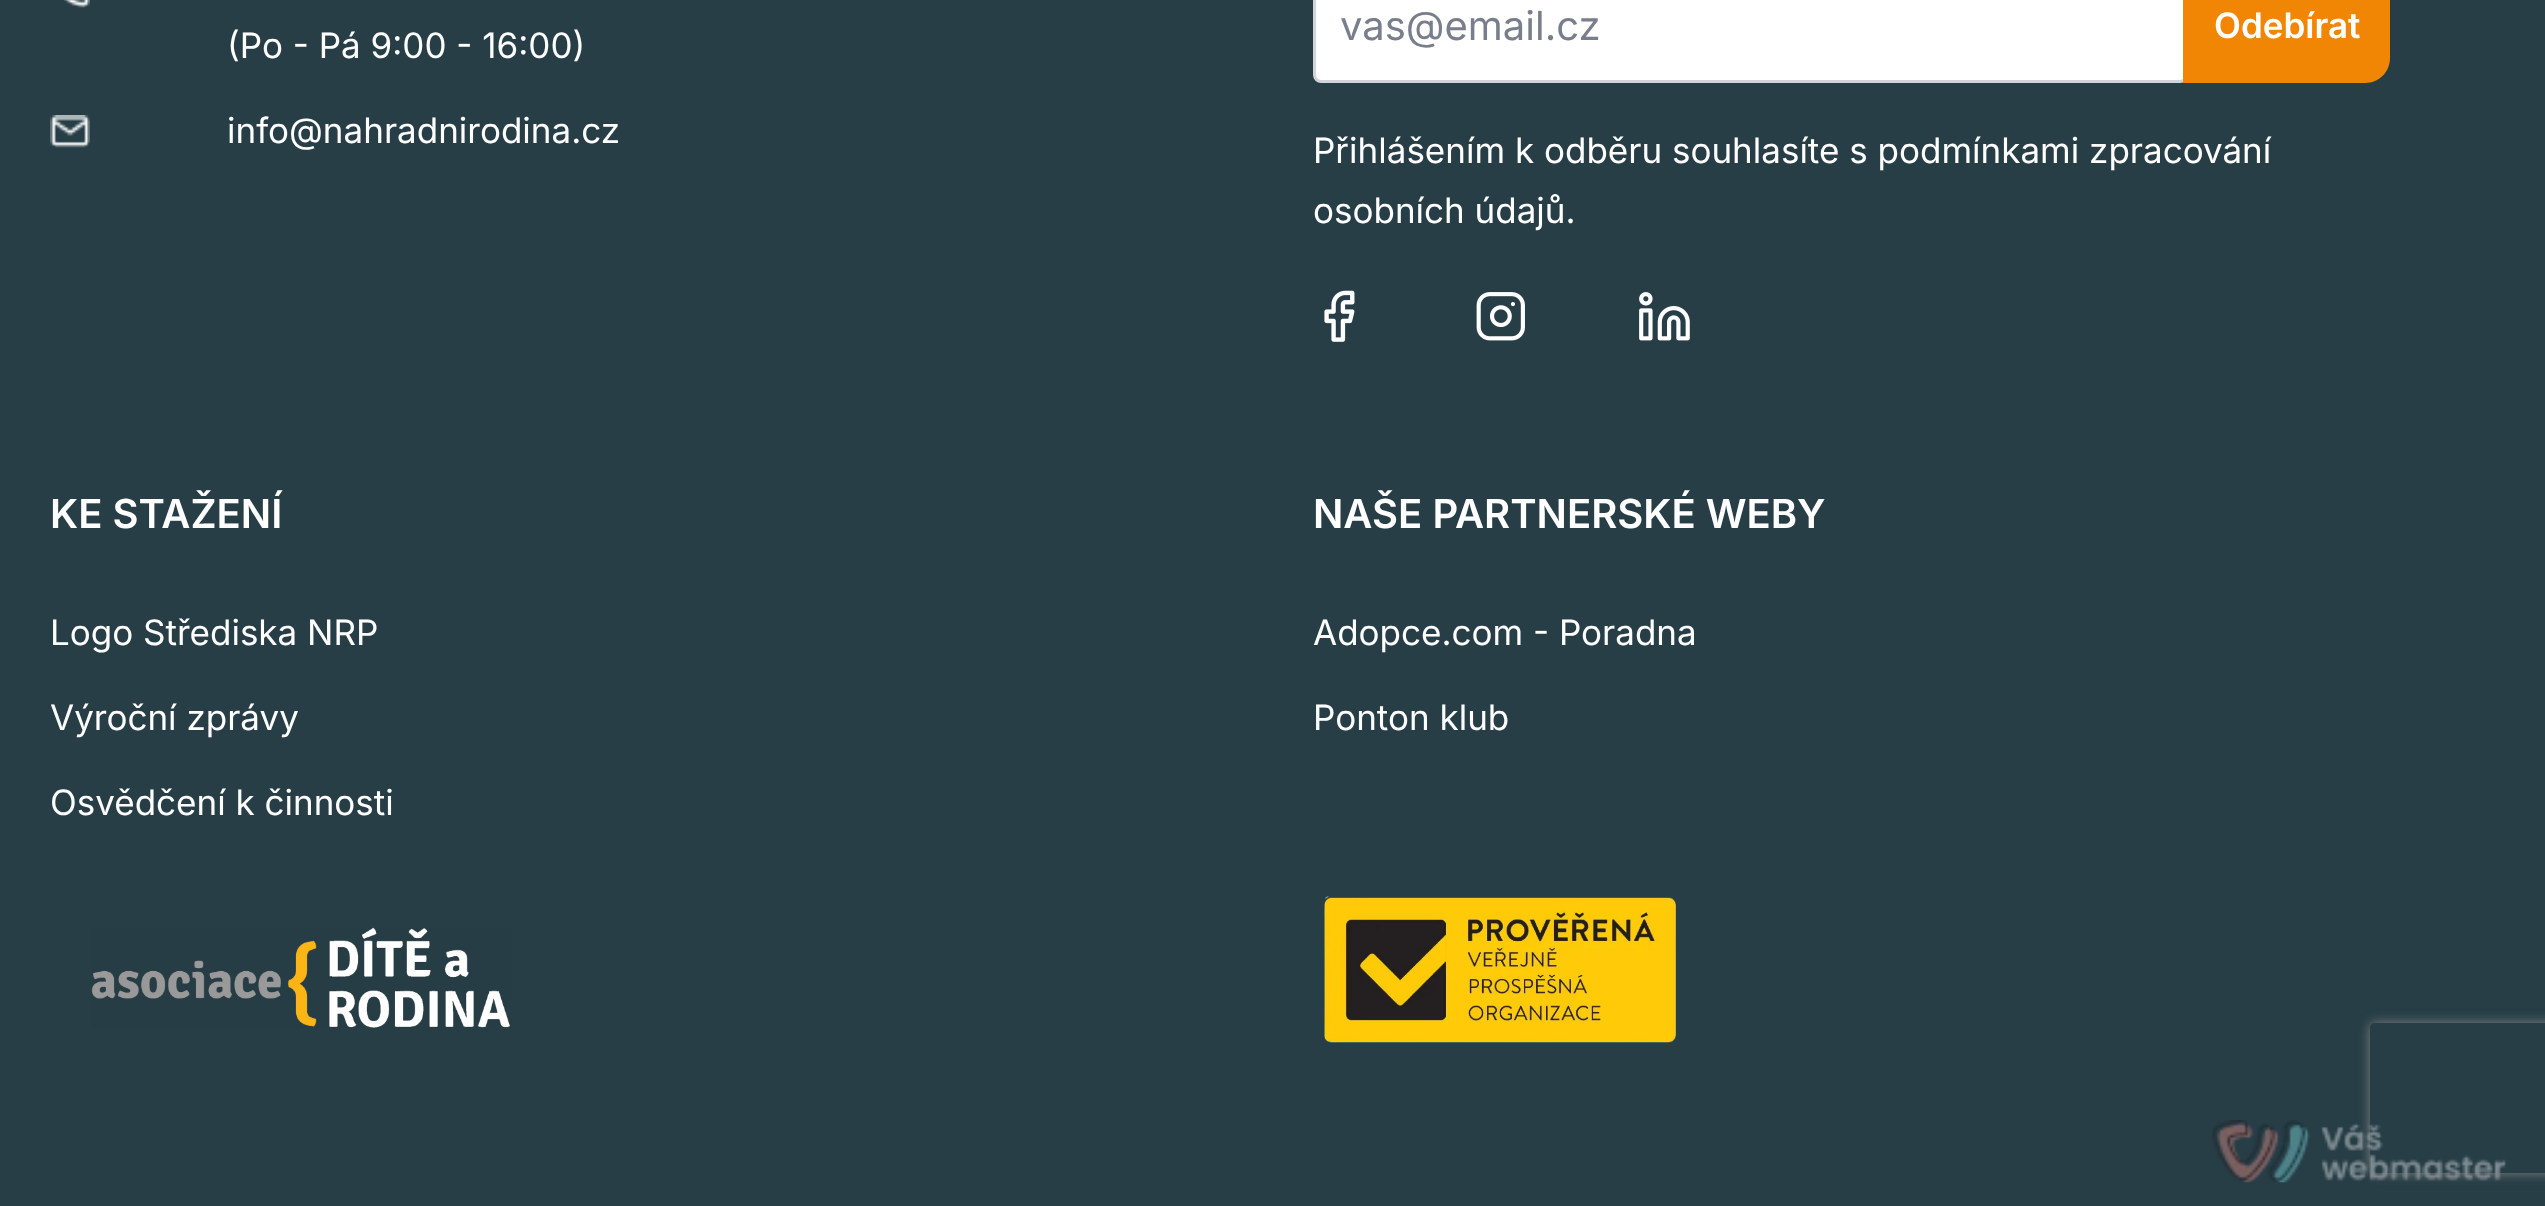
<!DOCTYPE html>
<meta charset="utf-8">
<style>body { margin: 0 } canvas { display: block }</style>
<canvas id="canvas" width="2545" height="1206"></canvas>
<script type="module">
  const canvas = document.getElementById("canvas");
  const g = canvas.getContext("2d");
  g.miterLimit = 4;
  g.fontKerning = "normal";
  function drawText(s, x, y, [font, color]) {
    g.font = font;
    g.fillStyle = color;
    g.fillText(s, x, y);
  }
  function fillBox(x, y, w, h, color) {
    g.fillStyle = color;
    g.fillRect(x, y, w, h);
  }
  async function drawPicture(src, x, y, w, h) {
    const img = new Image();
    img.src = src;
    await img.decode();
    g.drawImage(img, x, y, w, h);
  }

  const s1 = ["35px Inter", "#FFFFFF"];
  const s2 = ["40px Inter", "#787E8B"];
  const s3 = ["600 35px Inter", "#FFFFFF"];
  const s4 = ["600 40px Inter", "#FFFFFF"];

  fillBox(0, 0, 2545, 1206, "#273E47");
  await drawPicture("pic1.png", 63, 0, 27, 8);
  drawText("(Po - Pá 9:00 - 16:00)", 227, 58, s1);
  await drawPicture("pic2.png", 50, 115, 40, 33);
  drawText("info@nahradnirodina.cz", 227, 143, s1);
  g.beginPath();
  g.roundRect(1314.5, -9.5, 872, 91, 6.5);
  g.fill();
  g.strokeStyle = "#D1D5DB";
  g.lineWidth = 3;
  g.stroke();
  drawText("vas@email.cz", 1340, 40, s2);
  g.fillStyle = "#F18605";
  g.beginPath();
  g.moveTo(2183, -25);
  g.lineTo(2365, -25);
  g.bezierCurveTo(2379, -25, 2390, -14, 2390, 0);
  g.lineTo(2390, 58);
  g.bezierCurveTo(2390, 72, 2379, 83, 2365, 83);
  g.lineTo(2183, 83);
  g.closePath();
  g.fill();
  drawText("Odebírat", 2214, 38, s3);
  drawText("Přihlášením k odběru souhlasíte s podmínkami zpracování", 1313, 163, s1);
  drawText("osobních údajů.", 1313, 223, s1);
  await drawPicture("pic3.png", 1324, 290, 31, 52);
  await drawPicture("pic4.png", 1476, 292, 49, 49);
  await drawPicture("pic5.png", 1639, 292, 51, 49);
  drawText("KE STAŽENÍ", 50, 528, s4);
  drawText("Logo Střediska NRP", 50, 645, s1);
  drawText("Výroční zprávy", 50, 730, s1);
  drawText("Osvědčení k činnosti", 50, 815, s1);
  await drawPicture("pic6.png", 91, 927, 419, 101);
  drawText("NAŠE PARTNERSKÉ WEBY", 1313, 528, s4);
  drawText("Adopce.com - Poradna", 1313, 645, s1);
  drawText("Ponton klub", 1313, 730, s1);
  await drawPicture("pic7.png", 1324, 896, 352, 147);
  await drawPicture("pic8.png", 2212, 1120, 294, 63);
  g.save();
  g.beginPath();
  g.moveTo(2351, 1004);
  g.lineTo(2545, 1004);
  g.lineTo(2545, 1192);
  g.lineTo(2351, 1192);
  g.closePath();
  g.moveTo(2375, 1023);
  g.lineTo(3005, 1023);
  g.bezierCurveTo(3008, 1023, 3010, 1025, 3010, 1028);
  g.lineTo(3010, 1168);
  g.bezierCurveTo(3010, 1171, 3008, 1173, 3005, 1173);
  g.lineTo(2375, 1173);
  g.bezierCurveTo(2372, 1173, 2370, 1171, 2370, 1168);
  g.lineTo(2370, 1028);
  g.bezierCurveTo(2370, 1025, 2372, 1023, 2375, 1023);
  g.closePath();
  g.clip("evenodd");
  g.fillStyle = "#808080";
  g.filter = "blur(6px)";
  g.beginPath();
  g.roundRect(2370, 1023, 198, 150, 5);
  g.fill();
  g.filter = "none";
  g.restore();
</script>
